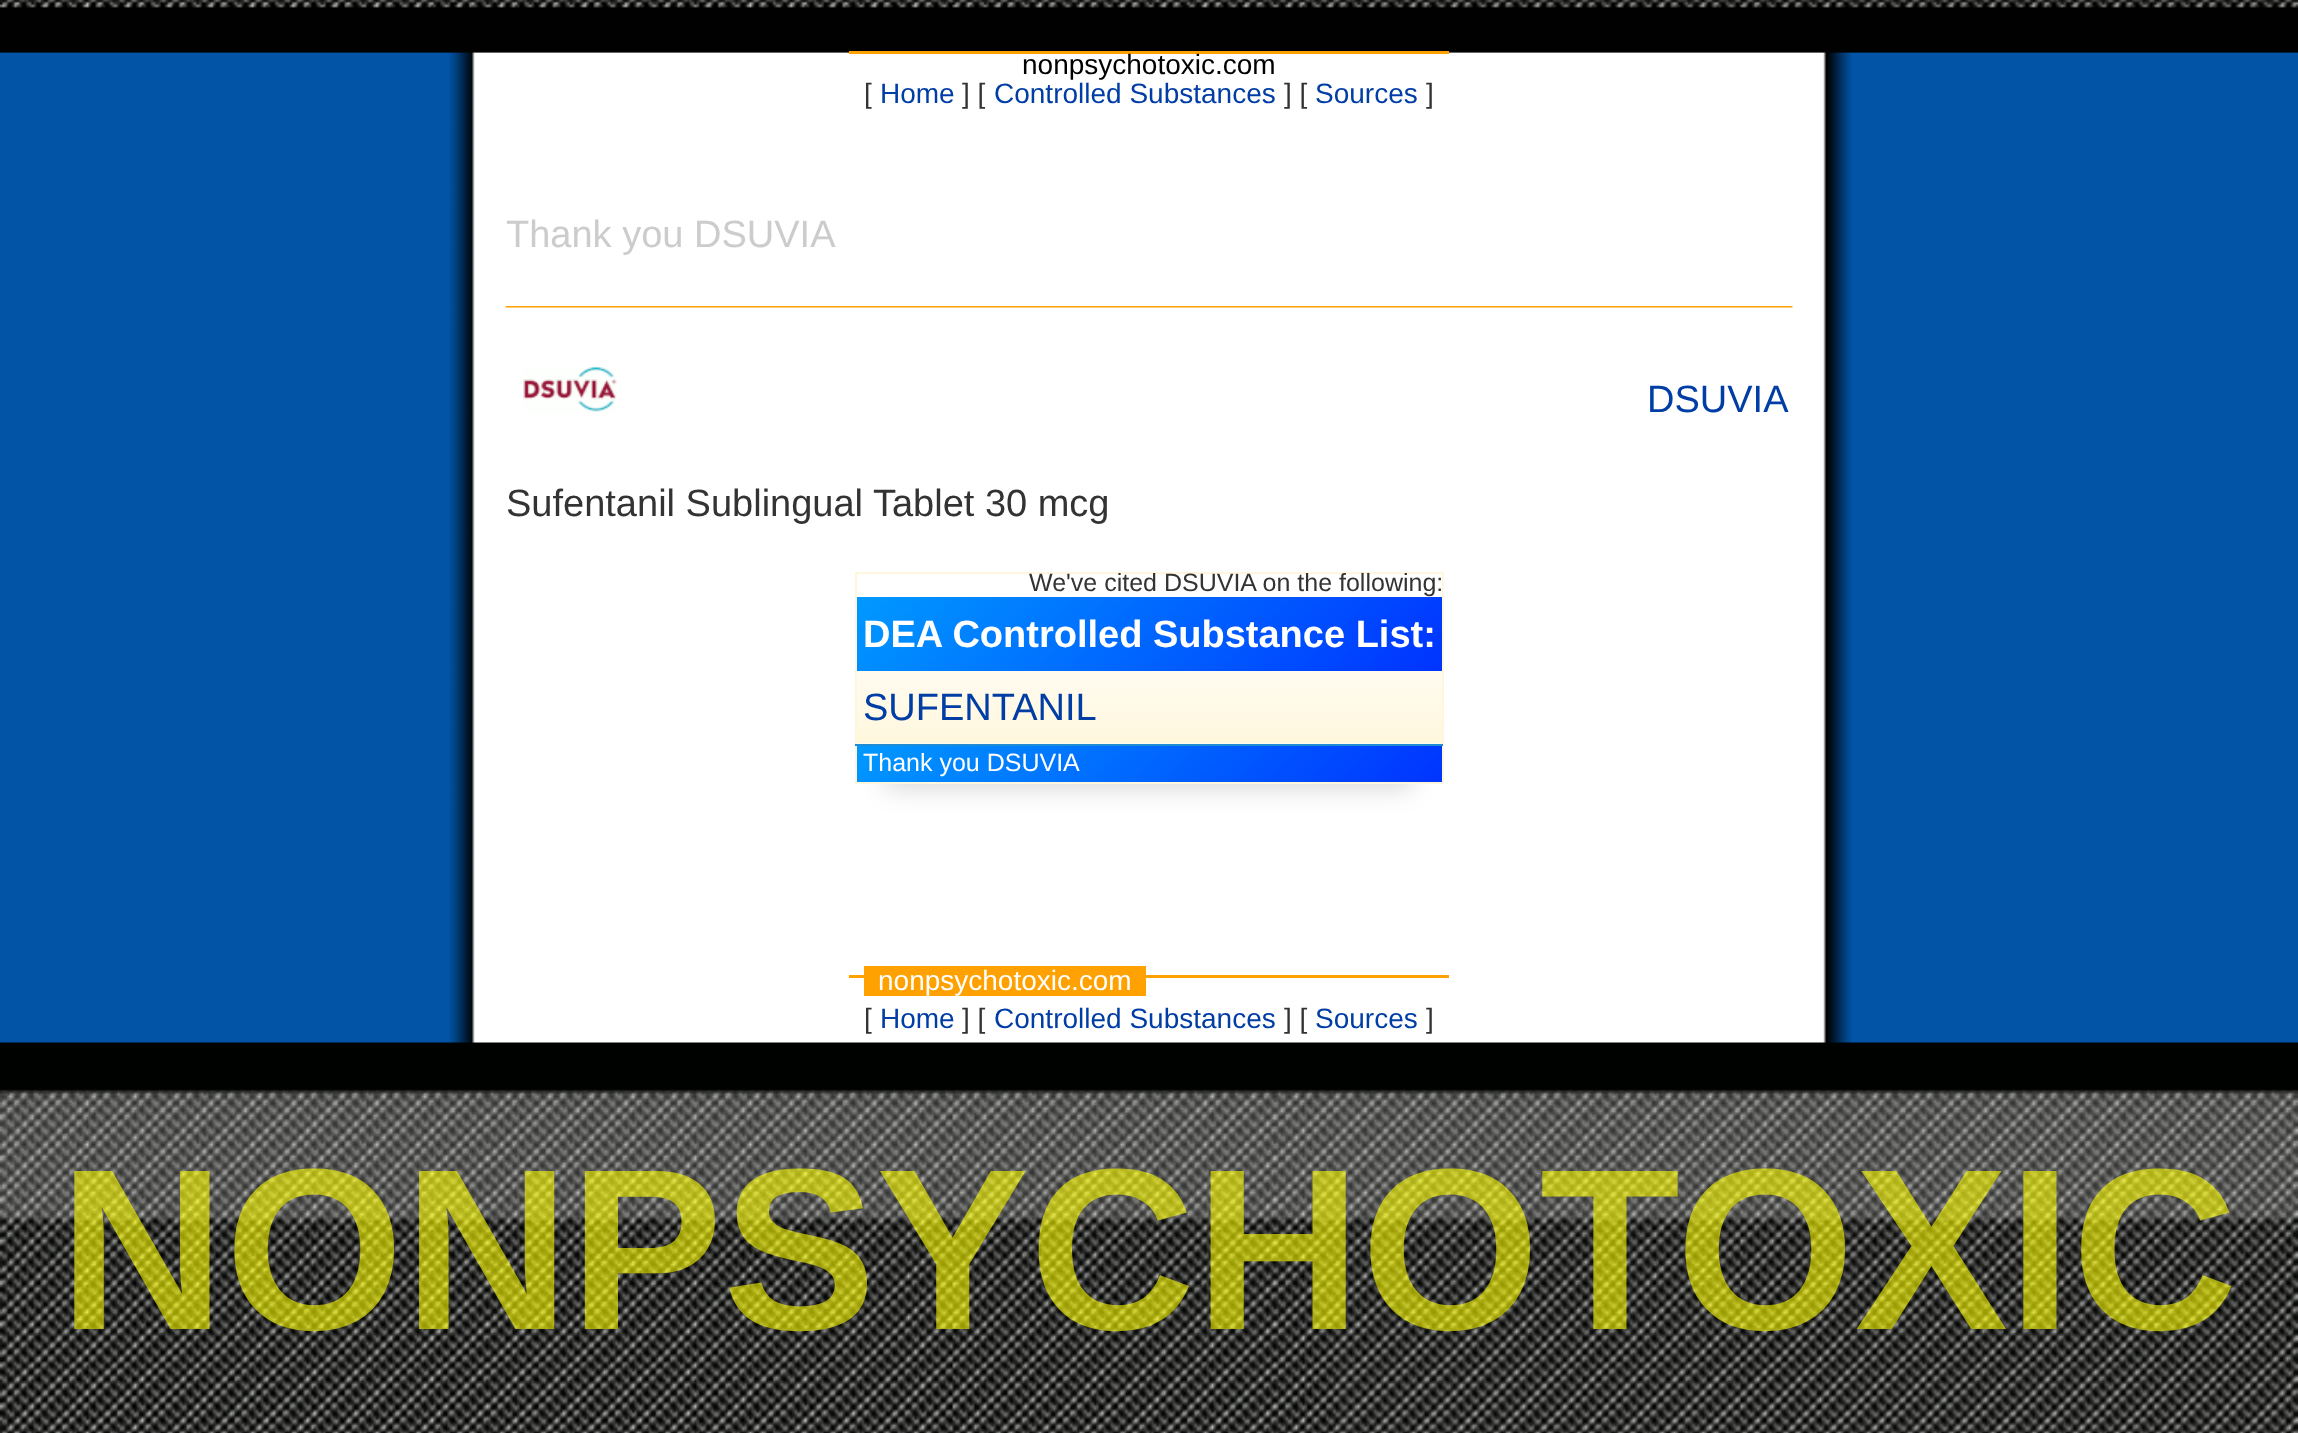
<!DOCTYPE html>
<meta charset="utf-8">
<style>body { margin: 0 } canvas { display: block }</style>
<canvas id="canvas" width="2298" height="1433"></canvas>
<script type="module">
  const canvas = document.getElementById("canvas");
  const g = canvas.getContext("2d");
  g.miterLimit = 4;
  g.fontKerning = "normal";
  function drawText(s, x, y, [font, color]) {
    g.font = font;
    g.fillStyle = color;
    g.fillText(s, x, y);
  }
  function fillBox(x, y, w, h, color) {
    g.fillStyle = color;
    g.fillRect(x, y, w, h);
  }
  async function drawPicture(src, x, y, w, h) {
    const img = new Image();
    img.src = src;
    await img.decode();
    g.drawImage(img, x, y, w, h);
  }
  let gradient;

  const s1 = ["28px Liberation Sans", "#000000"];
  const s2 = ["28px Liberation Sans", "#333333"];
  const s3 = ["28px Liberation Sans", "#003DA5"];
  const s4 = ["38px Liberation Sans", "#CCCCCC"];
  const s5 = ["38px Liberation Sans", "#003DA5"];
  const s6 = ["38px Liberation Sans", "#333333"];
  const s7 = ["25px Liberation Sans", "#333333"];
  const s8 = ["bold 38px Liberation Sans", "#FFFFFF"];
  const s9 = ["25px Liberation Sans", "#FFFFFF"];
  const s10 = ["28px Liberation Sans", "#FFFFFF"];
  const s11 = ["bold 229.75px Liberation Sans", "#FFFF00"];

  fillBox(0, 0, 2298, 1433, "#0154A6");
  await drawPicture("pic1.png", 449, 52, 1403, 991);
  await drawPicture("pic2.png", 0, 0, 2298, 53);
  await drawPicture("pic3.png", 0, 0, 2298, 53);
  fillBox(849, 51, 600, 3, "#FFA100");
  drawText("nonpsychotoxic.com", 1022, 74, s1);
  drawText("[", 864, 103, s2);
  drawText("Home", 880, 103, s3);
  drawText("] [", 962, 103, s2);
  drawText("Controlled Substances", 994, 103, s3);
  drawText("] [", 1284, 103, s2);
  drawText("Sources", 1315, 103, s3);
  drawText("]", 1426, 103, s2);
  drawText("Thank you DSUVIA", 506, 247, s4);
  await drawPicture("pic4.png", 505, 306, 1288, 2);
  await drawPicture("pic5.png", 523, 367, 94, 46);
  drawText("DSUVIA", 1647, 412, s5);
  drawText("Sufentanil Sublingual Tablet 30 mcg", 506, 516, s6);
  g.fillStyle = "rgba(0, 0, 0, 0.15)";
  g.filter = "blur(12px)";
  g.beginPath();
  g.rect(885, 638, 528, 151);
  g.fill();
  g.filter = "none";
  fillBox(855, 572, 588, 2, "#FFF7DD");
  fillBox(1442, 572, 2, 211, "#FFF7DD");
  fillBox(855, 782, 588, 2, "#FFF7DD");
  fillBox(855, 572, 2, 211, "#FFF7DD");
  drawText("We've cited DSUVIA on the following:", 1029, 591, s7);
  gradient = g.createLinearGradient(1314, 798, 984, 469);
  gradient.addColorStop(0, "#0033FF");
  gradient.addColorStop(1, "#0099FF");
  g.fillStyle = gradient;
  g.fillRect(857, 597, 585, 74);
  drawText("DEA Controlled Substance List:", 863, 647, s8);
  gradient = g.createLinearGradient(1149, 671, 1149, 743);
  gradient.addColorStop(0, "#FFFBF0");
  gradient.addColorStop(1, "#FFF7DD");
  g.fillStyle = gradient;
  g.fillRect(857, 671, 585, 72);
  gradient = g.createLinearGradient(1149, 743, 1149, 815);
  gradient.addColorStop(0, "#FFFBF0");
  gradient.addColorStop(1, "#FFF7DD");
  g.fillStyle = gradient;
  g.fillRect(857, 743, 585, 1);
  fillBox(855, 744, 588, 2, "#1F8DD6");
  drawText("SUFENTANIL", 863, 720, s5);
  gradient = g.createLinearGradient(1305, 920, 993, 608);
  gradient.addColorStop(0, "#0033FF");
  gradient.addColorStop(1, "#0099FF");
  g.fillStyle = gradient;
  g.fillRect(857, 746, 585, 36);
  drawText("Thank you DSUVIA", 863, 771, s9);
  fillBox(849, 975, 600, 3, "#FFA100");
  fillBox(864, 966, 282, 30, "#FFA100");
  drawText("nonpsychotoxic.com", 878, 990, s10);
  drawText("[", 864, 1028, s2);
  drawText("Home", 880, 1028, s3);
  drawText("] [", 962, 1028, s2);
  drawText("Controlled Substances", 994, 1028, s3);
  drawText("] [", 1284, 1028, s2);
  drawText("Sources", 1315, 1028, s3);
  drawText("]", 1426, 1028, s2);
  await drawPicture("pic6.png", 0, 1042, 2298, 391);
  drawText("NONPSYCHOTOXIC", 59, 1329, s11);
  await drawPicture("pic7.png", 0, 1090, 2298, 343);
</script>
